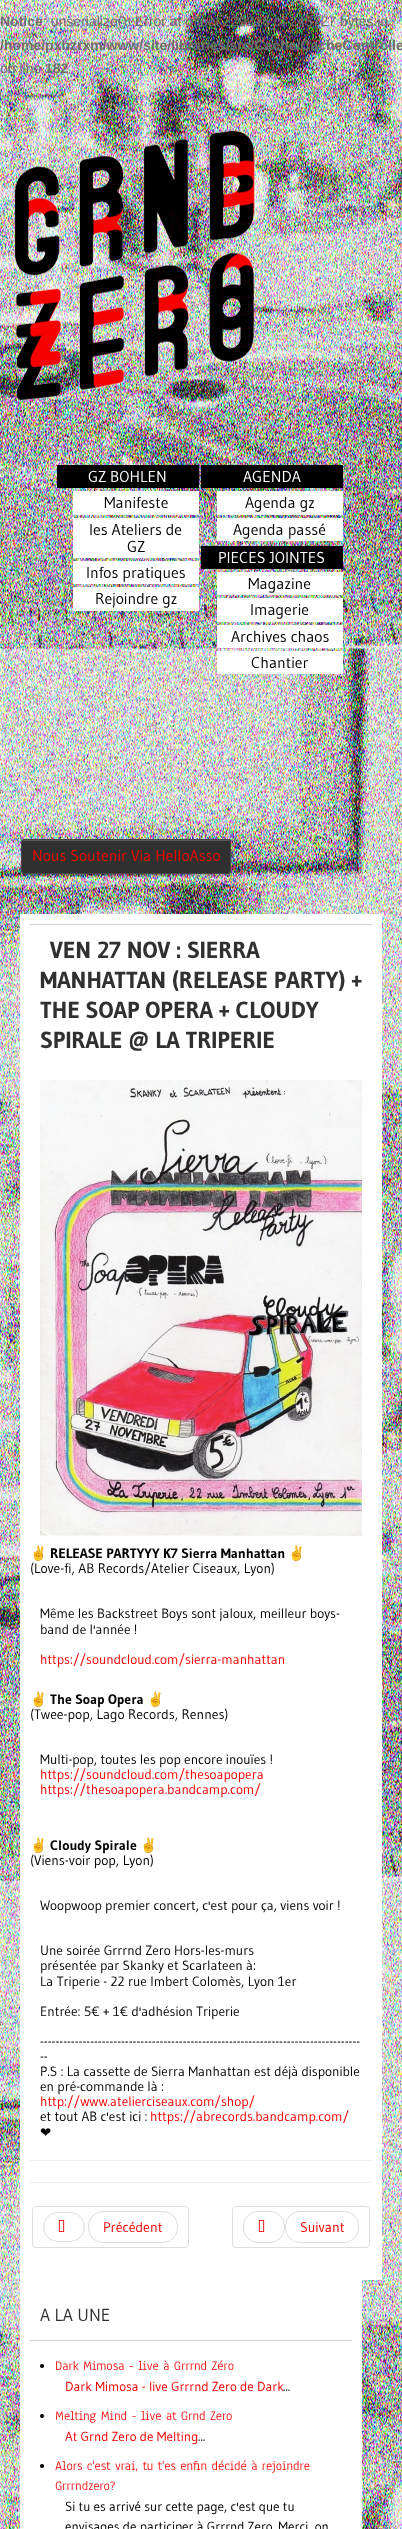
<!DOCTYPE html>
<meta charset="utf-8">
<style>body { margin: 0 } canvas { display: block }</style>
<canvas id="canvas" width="402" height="2529"></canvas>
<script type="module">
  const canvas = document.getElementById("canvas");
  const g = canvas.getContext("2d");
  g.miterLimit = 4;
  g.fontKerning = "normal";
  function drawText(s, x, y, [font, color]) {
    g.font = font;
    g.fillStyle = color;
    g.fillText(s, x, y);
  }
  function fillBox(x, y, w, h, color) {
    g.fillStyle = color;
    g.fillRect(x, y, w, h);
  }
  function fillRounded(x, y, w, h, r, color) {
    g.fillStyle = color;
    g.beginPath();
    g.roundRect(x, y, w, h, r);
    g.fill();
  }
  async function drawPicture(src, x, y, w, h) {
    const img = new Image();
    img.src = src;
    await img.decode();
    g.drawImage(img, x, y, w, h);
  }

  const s1 = ["bold 14px Liberation Sans", "#6E6E6E"];
  const s2 = ["14px Liberation Sans", "#6E6E6E"];
  const s3 = ["15.75px Gudea", "#FFFFFF"];
  const s4 = ["15.75px Gudea", "#000000"];
  const s5 = ["15.75px Gudea", "#F70000"];
  const s6 = ["bold 23.25px Gudea", "#303030"];
  const s7 = ["13.75px Noto Color Emoji", "#000000"];
  const s8 = ["bold 13.75px Gudea", "#000000"];
  const s9 = ["13.75px Gudea", "#000000"];
  const s10 = ["13.45px Gudea", "#000000"];
  const s11 = ["13.45px Gudea", "#F70000"];
  const s12 = ["bold 13.75px Noto Color Emoji", "#000000"];
  const s13 = ["13.45px DejaVu Sans", "#000000"];
  const s14 = ["14px Gudea", "#F70000"];
  const s15 = ["17.5px Gudea", "#303030"];
  const s16 = ["13.45px Anaheim", "#F70000"];
  const s17 = ["13.2px Gudea", "#F70000"];
  const s18 = ["13.2px Gudea", "#000000"];

  fillBox(0, 0, 402, 2529, "#FFFFFF");
  await drawPicture("pic1.png", 0, 0, 402, 2529);
  drawText("Notice", 0, 26, s1);
  drawText(": unserialize(): Error at offset 229216 of 245727 bytes in", 43, 26, s2);
  drawText("/home/pxbzrxm/www/site/libraries/src/Cache/CacheControlle", 0, 50, s1);
  drawText("on line", 0, 73, s2);
  drawText("182", 45, 73, s1);
  await drawPicture("pic2.png", 0, 81, 402, 833);
  await drawPicture("pic3.png", 14, 130, 241, 271);
  fillBox(57, 465, 142, 23, "#000000");
  drawText("GZ BOHLEN", 88, 482, s3);
  fillBox(73, 491, 126, 24, "#FFFFFF");
  drawText("Manifeste", 104, 508, s4);
  fillBox(73, 518, 126, 40, "#FFFFFF");
  drawText("les Ateliers de", 89, 535, s4);
  drawText("GZ", 127, 552, s4);
  fillBox(73, 561, 126, 23, "#FFFFFF");
  drawText("Infos pratiques", 86, 578, s4);
  fillBox(73, 587, 126, 24, "#FFFFFF");
  drawText("Rejoindre gz", 95, 604, s4);
  fillBox(201, 465, 142, 23, "#000000");
  drawText("AGENDA", 243, 482, s3);
  fillBox(217, 491, 126, 24, "#FFFFFF");
  drawText("Agenda gz", 245, 508, s4);
  fillBox(217, 518, 126, 23, "#FFFFFF");
  drawText("Agenda passé", 233, 535, s4);
  fillBox(201, 546, 142, 23, "#000000");
  drawText("PIECES JOINTES", 218, 563, s3);
  fillBox(217, 572, 126, 23, "#FFFFFF");
  drawText("Magazine", 248, 589, s4);
  fillBox(217, 598, 126, 24, "#FFFFFF");
  drawText("Imagerie", 250, 615, s4);
  fillBox(217, 625, 126, 23, "#FFFFFF");
  drawText("Archives chaos", 231, 642, s4);
  fillBox(217, 651, 126, 23, "#FFFFFF");
  drawText("Chantier", 251, 668, s4);
  g.fillStyle = "rgba(0, 0, 0, 0.2)";
  g.filter = "blur(1.5px)";
  g.beginPath();
  g.roundRect(21, 841, 210, 35, 4);
  g.fill();
  g.filter = "none";
  fillRounded(21, 839, 210, 35, 4, "#303030");
  g.fillStyle = "#595959";
  g.beginPath();
  g.moveTo(25, 841);
  g.lineTo(227, 841);
  g.bezierCurveTo(229, 841, 230, 842, 230, 844);
  g.bezierCurveTo(230, 842, 229, 840, 227, 840);
  g.lineTo(24, 840);
  g.bezierCurveTo(22, 841, 22, 842, 22, 844);
  g.bezierCurveTo(22, 842, 23, 841, 25, 841);
  g.closePath();
  g.fill();
  g.beginPath();
  g.roundRect(21.5, 839.5, 209, 34, 3.5);
  g.strokeStyle = "#484848";
  g.stroke();
  drawText("Nous Soutenir Via HelloAsso", 32, 861, s5);
  fillBox(20, 914, 362, 1366, "#FFFFFF");
  fillBox(30, 924, 342, 1, "#D1D1D1");
  drawText("VEN 27 NOV : SIERRA", 50, 958, s6);
  drawText("MANHATTAN (RELEASE PARTY) +", 40, 988, s6);
  drawText("THE SOAP OPERA + CLOUDY", 40, 1018, s6);
  drawText("SPIRALE @ LA TRIPERIE", 40, 1048, s6);
  await drawPicture("pic4.png", 40, 1080, 322, 456);
  drawText("✌", 30, 1558, s7);
  drawText("RELEASE PARTYYY K7 Sierra Manhattan", 50, 1558, s8);
  drawText("✌", 288, 1558, s7);
  drawText("(Love-fi, AB Records/Atelier Ciseaux, Lyon)", 30, 1573, s9);
  drawText("Même les Backstreet Boys sont jaloux, meilleur boys-", 40, 1618, s10);
  drawText("band de l'année !", 40, 1634, s10);
  drawText("https://soundcloud.com/sierra-manhattan", 40, 1664, s11);
  drawText("✌", 30, 1704, s12);
  drawText("The Soap Opera", 50, 1704, s8);
  drawText("✌", 147, 1704, s12);
  drawText("(Twee-pop, Lago Records, Rennes)", 30, 1719, s9);
  drawText("Multi-pop, toutes les pop encore inouïes !", 40, 1764, s10);
  drawText("https://soundcloud.com/thesoapopera", 40, 1779, s11);
  drawText("https://thesoapopera.bandcamp.com/", 40, 1794, s11);
  drawText("✌", 30, 1850, s12);
  drawText("Cloudy Spirale", 50, 1850, s8);
  drawText("✌", 140, 1850, s12);
  drawText("(Viens-voir pop, Lyon)", 30, 1865, s9);
  drawText("Woopwoop premier concert, c'est pour ça, viens voir !", 40, 1910, s10);
  drawText("Une soirée Grrrnd Zero Hors-les-murs", 40, 1955, s10);
  drawText("présentée par Skanky et Scarlateen à:", 40, 1970, s10);
  drawText("La Triperie - 22 rue Imbert Colomès, Lyon 1er", 40, 1986, s10);
  drawText("Entrée: 5€ + 1€ d'adhésion Triperie", 40, 2016, s10);
  drawText("-----------------------------------------------------------------------------------", 40, 2046, s10);
  drawText("--", 40, 2061, s10);
  drawText("P.S : La cassette de Sierra Manhattan est déjà disponible", 40, 2076, s10);
  drawText("en pré-commande là :", 40, 2091, s10);
  drawText("http://www.atelierciseaux.com/shop/", 40, 2106, s11);
  drawText("et tout AB c'est ici :", 40, 2121, s10);
  drawText("https://abrecords.bandcamp.com/", 150, 2121, s11);
  drawText("❤", 40, 2137, s13);
  fillBox(30, 2160, 342, 1, "#EEEEEE");
  fillBox(30, 2182, 342, 1, "#EEEEEE");
  g.beginPath();
  g.roundRect(32.5, 2206.5, 156, 41, 3.5);
  g.strokeStyle = "#DDDDDD";
  g.stroke();
  g.beginPath();
  g.roundRect(43.5, 2212.5, 41, 29, 14.5);
  g.stroke();
  await drawPicture("pic5.png", 58, 2220, 7, 12);
  g.beginPath();
  g.roundRect(88.5, 2211.5, 89, 31, 14.5);
  g.stroke();
  drawText("Précédent", 103, 2232, s14);
  g.beginPath();
  g.roundRect(232.5, 2206.5, 137, 41, 3.5);
  g.stroke();
  g.beginPath();
  g.roundRect(243.5, 2211.5, 41, 31, 14.5);
  g.stroke();
  await drawPicture("pic5.png", 258, 2220, 7, 12);
  g.beginPath();
  g.roundRect(285.5, 2211.5, 73, 31, 14.5);
  g.stroke();
  drawText("Suivant", 300, 2232, s14);
  fillBox(20, 2280, 342, 249, "#FFFFFF");
  fillBox(30, 2340, 322, 1, "#D1D1D1");
  drawText("A LA UNE", 40, 2321, s15);
  g.fillStyle = "#000000";
  g.beginPath();
  g.arc(42, 2366, 2, 0, Math.PI * 2);
  g.fill();
  drawText("Dark Mimosa - live à Grrrnd Zéro", 55, 2370, s16);
  drawText("Dark Mimosa - live Grrrnd Zero de Dark", 65, 2391, s17);
  drawText("...", 283, 2391, s18);
  g.beginPath();
  g.arc(42, 2416, 2, 0, Math.PI * 2);
  g.fill();
  drawText("Melting Mind - live at Grnd Zero", 55, 2420, s16);
  drawText("At Grnd Zero de Melting", 65, 2441, s17);
  drawText("...", 198, 2441, s18);
  g.beginPath();
  g.arc(42, 2466, 2, 0, Math.PI * 2);
  g.fill();
  drawText("Alors c'est vrai, tu t'es enfin décidé à rejoindre", 55, 2470, s16);
  drawText("Grrrndzero?", 55, 2490, s16);
  drawText("Si tu es arrivé sur cette page, c'est que tu", 65, 2511, s18);
  drawText("envisages de participer à Grrrnd Zero. Merci, on", 65, 2531, s18);
</script>
